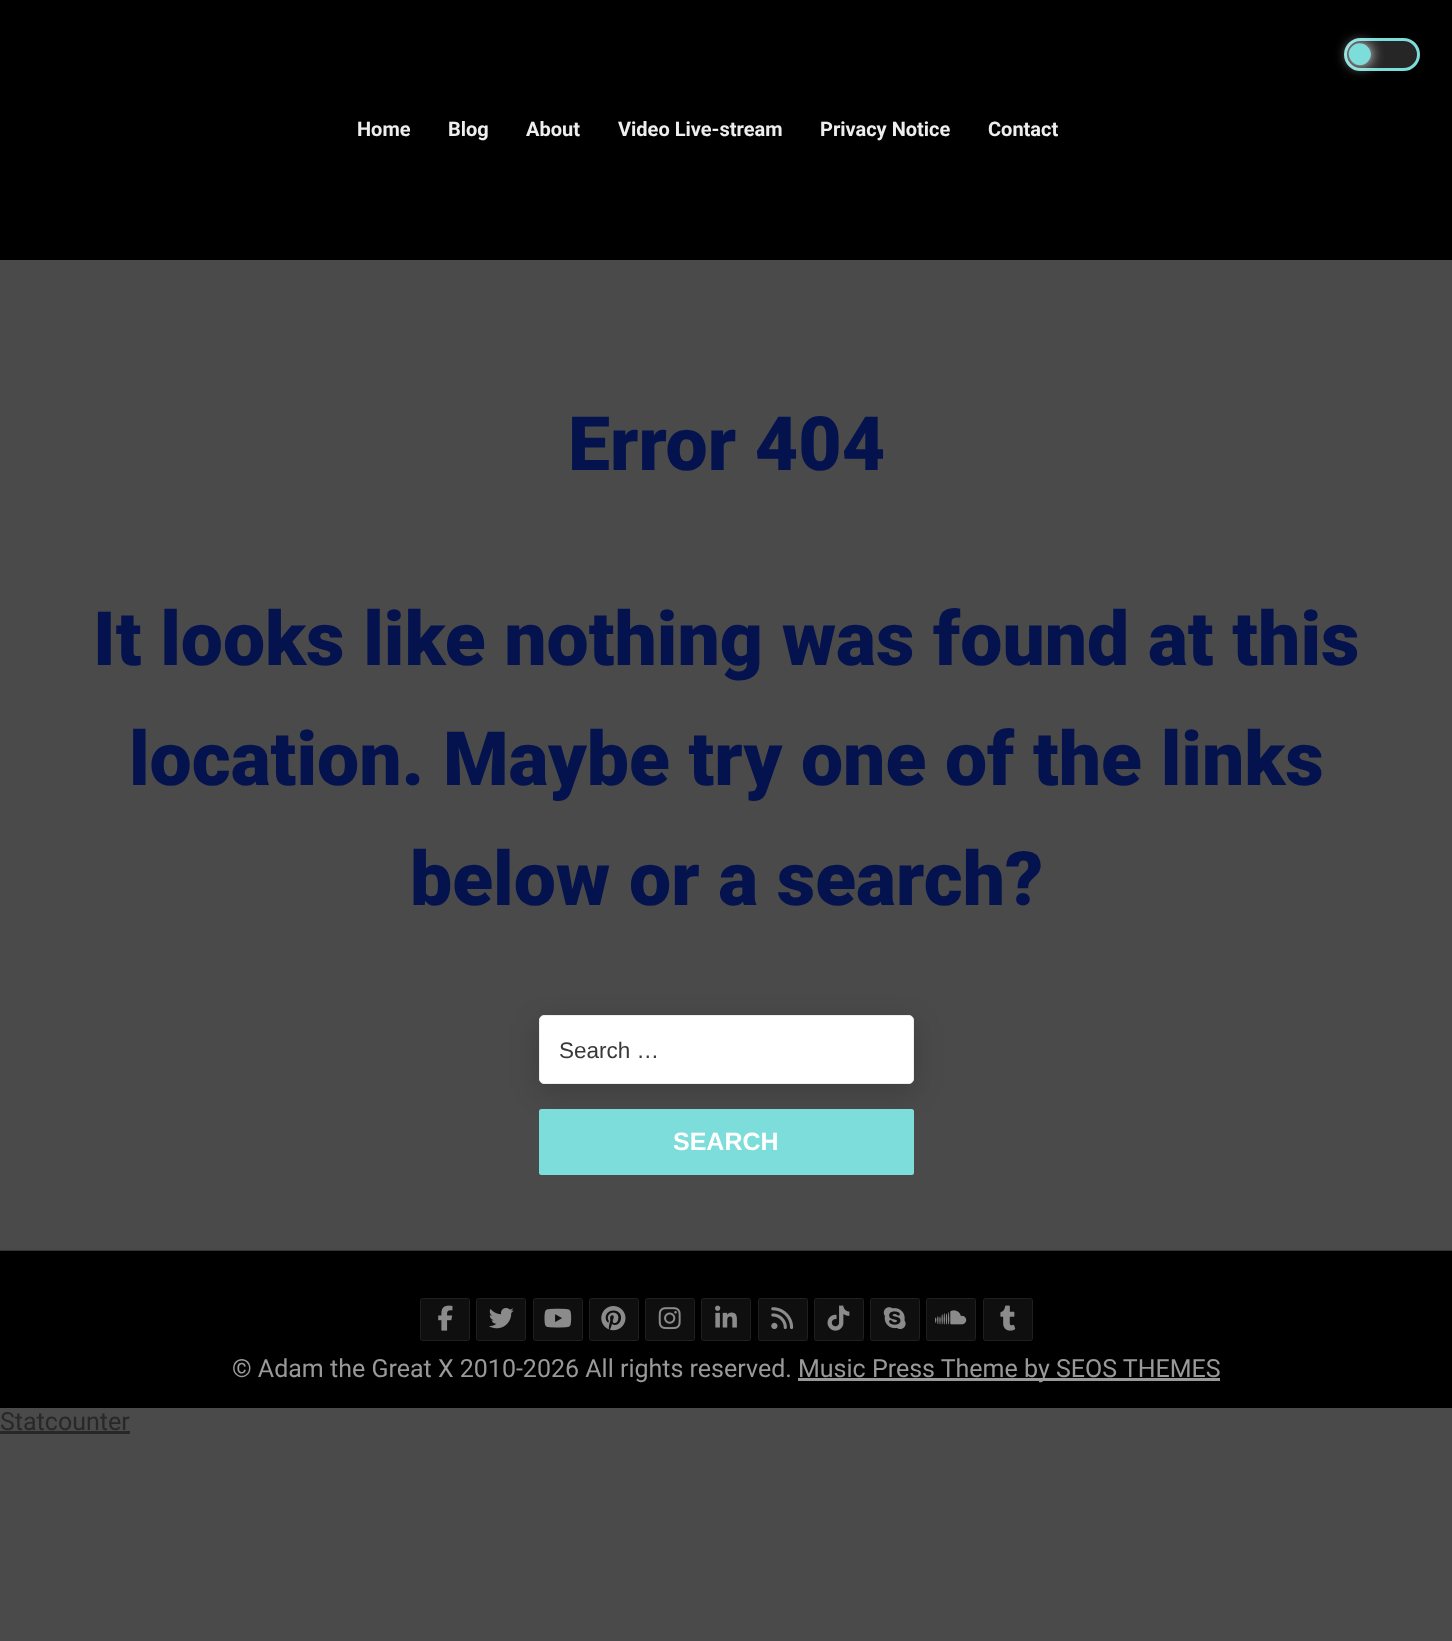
<!DOCTYPE html>
<meta charset="utf-8">
<style>body { margin: 0 } canvas { display: block }</style>
<canvas id="canvas" width="1452" height="1641"></canvas>
<script type="module">
  const canvas = document.getElementById("canvas");
  const g = canvas.getContext("2d");
  g.miterLimit = 4;
  g.fontKerning = "normal";
  function drawText(s, x, y, [font, color]) {
    g.font = font;
    g.fillStyle = color;
    g.fillText(s, x, y);
  }
  function fillBox(x, y, w, h, color) {
    g.fillStyle = color;
    g.fillRect(x, y, w, h);
  }
  function fillRounded(x, y, w, h, r, color) {
    g.fillStyle = color;
    g.beginPath();
    g.roundRect(x, y, w, h, r);
    g.fill();
  }
  async function drawPicture(src, x, y, w, h) {
    const img = new Image();
    img.src = src;
    await img.decode();
    g.drawImage(img, x, y, w, h);
  }

  const s1 = ["bold 20px Roboto", "#EEEEEE"];
  const s2 = ["900 75px Roboto", "#04134E"];
  const s3 = ["22.5px Liberation Sans", "#383838"];
  const s4 = ["bold 25px Liberation Sans", "#FFFFFF"];
  const s5 = ["25px Roboto", "#999999"];
  const s6 = ["25px Roboto", "#282828"];

  fillBox(0, 0, 1452, 1641, "#4A4A4A");
  fillBox(0, 0, 1452, 260, "#000000");
  g.fillStyle = "#262626";
  g.beginPath();
  g.roundRect(1345.5, 39.5, 73, 30, 15);
  g.fill();
  g.strokeStyle = "#7CDDDA";
  g.lineWidth = 3;
  g.stroke();
  g.fillStyle = "#FFFFFF";
  g.filter = "blur(7px)";
  g.beginPath();
  g.roundRect(1349, 44, 22, 21, 10.5);
  g.fill();
  g.filter = "none";
  g.fillStyle = "#7CDDDA";
  g.beginPath();
  g.moveTo(1352, 46.5);
  g.bezierCurveTo(1362.5, 36.5, 1378, 52, 1367.5, 62);
  g.bezierCurveTo(1357.5, 72, 1342, 56.5, 1352, 46.5);
  g.closePath();
  g.fill();
  drawText("Home", 357, 136, s1);
  drawText("Blog", 448, 136, s1);
  drawText("About", 526, 136, s1);
  drawText("Video Live-stream", 618, 136, s1);
  drawText("Privacy Notice", 820, 136, s1);
  drawText("Contact", 988, 136, s1);
  drawText("Error 404", 568, 470, s2);
  drawText("It looks like nothing was found at this", 93, 665, s2);
  drawText("location. Maybe try one of the links", 129, 785, s2);
  drawText("below or a search?", 410, 905, s2);
  g.fillStyle = "rgba(0, 0, 0, 0.18)";
  g.filter = "blur(14px)";
  g.beginPath();
  g.roundRect(539, 1023, 375, 68, 5);
  g.fill();
  g.filter = "none";
  g.fillStyle = "#FFFFFF";
  g.beginPath();
  g.roundRect(539.5, 1015.5, 374, 68, 4.5);
  g.fill();
  g.strokeStyle = "#EEEEEE";
  g.lineWidth = 1;
  g.stroke();
  drawText("Search …", 559, 1058, s3);
  fillRounded(539, 1109, 375, 66, 2.5, "#7CDDDA");
  drawText("SEARCH", 673, 1150, s4);
  fillBox(0, 1250, 1452, 1, "#333333");
  fillBox(0, 1251, 1452, 157, "#000000");
  g.fillStyle = "#0F0F0F";
  g.beginPath();
  g.roundRect(420.5, 1298.5, 49, 42, 2);
  g.fill();
  g.strokeStyle = "#1F1F1F";
  g.stroke();
  await drawPicture("pic1.png", 438, 1305, 15, 26);
  g.beginPath();
  g.roundRect(476.5, 1298.5, 49, 42, 2);
  g.fill();
  g.stroke();
  await drawPicture("pic2.png", 489, 1308, 25, 21);
  g.beginPath();
  g.roundRect(533.5, 1298.5, 49, 42, 2);
  g.fill();
  g.stroke();
  await drawPicture("pic3.png", 544, 1308, 28, 20);
  g.beginPath();
  g.roundRect(589.5, 1298.5, 49, 42, 2);
  g.fill();
  g.stroke();
  await drawPicture("pic4.png", 601, 1306, 25, 25);
  g.beginPath();
  g.roundRect(645.5, 1298.5, 49, 42, 2);
  g.fill();
  g.stroke();
  await drawPicture("pic5.png", 658, 1307, 23, 23);
  g.beginPath();
  g.roundRect(701.5, 1298.5, 49, 42, 2);
  g.fill();
  g.stroke();
  await drawPicture("pic6.png", 715, 1305, 22, 23);
  g.beginPath();
  g.roundRect(758.5, 1298.5, 49, 42, 2);
  g.fill();
  g.stroke();
  await drawPicture("pic7.png", 771, 1307, 23, 22);
  g.beginPath();
  g.roundRect(814.5, 1298.5, 49, 42, 2);
  g.fill();
  g.stroke();
  await drawPicture("pic8.png", 827, 1305, 23, 26);
  g.beginPath();
  g.roundRect(870.5, 1298.5, 49, 42, 2);
  g.fill();
  g.stroke();
  await drawPicture("pic9.png", 883, 1307, 23, 22);
  g.beginPath();
  g.roundRect(926.5, 1298.5, 49, 42, 2);
  g.fill();
  g.stroke();
  await drawPicture("pic10.png", 935, 1310, 32, 15);
  g.beginPath();
  g.roundRect(983.5, 1298.5, 49, 42, 2);
  g.fill();
  g.stroke();
  await drawPicture("pic11.png", 1000, 1305, 16, 26);
  drawText("© Adam the Great X 2010-2026 All rights reserved.", 232, 1377, s5);
  fillBox(798, 1378, 422, 3, "#999999");
  drawText("Music Press Theme by SEOS THEMES", 798, 1377, s5);
  drawText("Statcounter", 0, 1430, s6);
  fillBox(0, 1431, 130, 3, "#282828");
</script>
